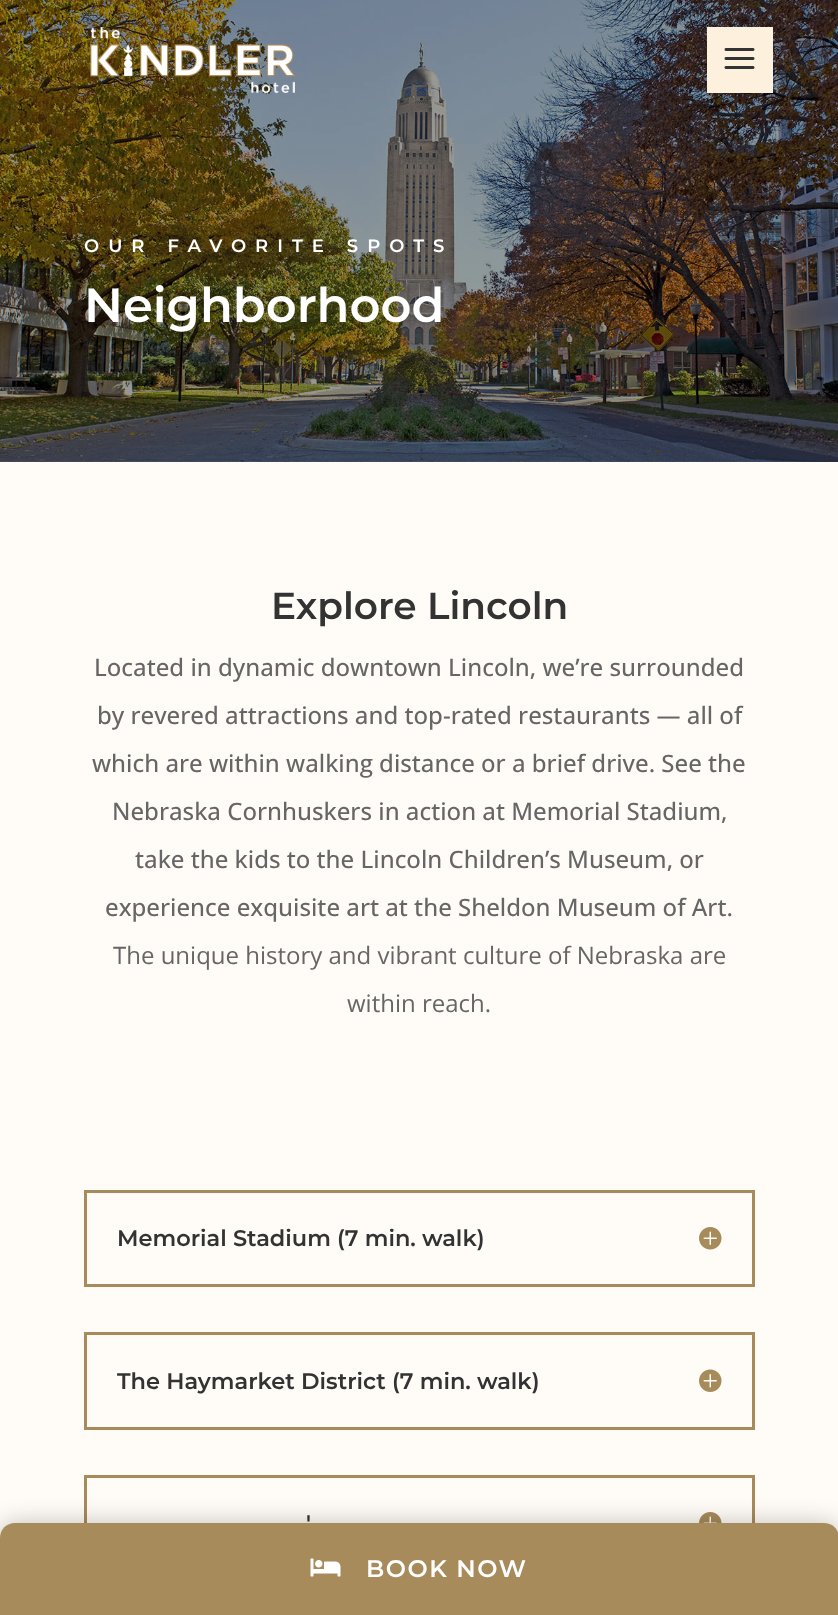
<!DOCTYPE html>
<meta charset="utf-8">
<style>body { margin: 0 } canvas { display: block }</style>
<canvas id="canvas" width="838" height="1615"></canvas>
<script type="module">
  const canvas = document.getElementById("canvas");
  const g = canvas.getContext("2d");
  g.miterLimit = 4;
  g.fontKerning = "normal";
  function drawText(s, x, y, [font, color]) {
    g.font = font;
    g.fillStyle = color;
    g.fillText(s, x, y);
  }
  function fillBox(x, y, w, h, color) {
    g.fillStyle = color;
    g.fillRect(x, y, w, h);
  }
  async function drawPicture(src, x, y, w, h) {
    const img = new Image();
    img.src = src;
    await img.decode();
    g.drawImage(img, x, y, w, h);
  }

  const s1 = ["100 18px Montserrat", "#FFFFFF"];
  const s2 = ["100 48px Montserrat", "#FFFFFF"];
  const s3 = ["100 37.5px Montserrat", "#333333"];
  const s4 = ["500 24px Open Sans", "#666666"];
  const s5 = ["24px Open Sans", "#666666"];
  const s6 = ["100 22.5px Montserrat", "#333333"];
  const s7 = ["100 24px Montserrat", "#FFFFFF"];

  fillBox(0, 0, 838, 1615, "#FFFCF7");
  await drawPicture("pic3.png", 0, 0, 838, 462);
  await drawPicture("pic1.png", 90, 27, 205, 66);
  fillBox(707, 27, 66, 66, "#FDF1DD");
  await drawPicture("pic2.png", 724, 48, 31, 21);
  g.letterSpacing = "9px";
  drawText("OUR FAVORITE SPOTS", 84, 252, s1);
  g.letterSpacing = "0px";
  drawText("Neighborhood", 84, 322, s2);
  drawText("Explore Lincoln", 271, 619, s3);
  drawText("Located in dynamic downtown Lincoln, we’re surrounded", 94, 676, s4);
  drawText("by revered attractions and top-rated restaurants — all of", 97, 724, s4);
  drawText("which are within walking distance or a brief drive. See the", 92, 772, s4);
  drawText("Nebraska Cornhuskers in action at Memorial Stadium,", 112, 820, s4);
  drawText("take the kids to the Lincoln Children’s Museum, or", 135, 868, s4);
  drawText("experience exquisite art at the Sheldon Museum of Art.", 105, 916, s4);
  drawText("The unique history and vibrant culture of Nebraska are", 113, 964, s5);
  drawText("within reach.", 347, 1012, s5);
  g.strokeStyle = "#A78B5B";
  g.lineWidth = 3;
  g.strokeRect(85.5, 1191.5, 668, 94);
  drawText("Memorial Stadium (7 min. walk)", 117, 1246, s6);
  await drawPicture("pic4.png", 699, 1227, 23, 23);
  g.strokeRect(85.5, 1333.5, 668, 95);
  drawText("The Haymarket District (7 min. walk)", 117, 1389, s6);
  await drawPicture("pic5.png", 699, 1369, 23, 23);
  g.strokeRect(85.5, 1476.5, 668, 94);
  drawText("'", 306, 1531, s6);
  await drawPicture("pic6.png", 699, 1512, 23, 11);
  g.fillStyle = "rgba(0, 0, 0, 0.3)";
  g.filter = "blur(13.5px)";
  g.beginPath();
  g.roundRect(0, 1526, 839, 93, 15);
  g.fill();
  g.filter = "none";
  g.fillStyle = "#A78B5B";
  g.beginPath();
  g.moveTo(15, 1523);
  g.lineTo(824, 1523);
  g.bezierCurveTo(832.5, 1523, 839, 1529.5, 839, 1538);
  g.lineTo(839, 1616);
  g.lineTo(0, 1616);
  g.lineTo(0, 1538);
  g.bezierCurveTo(0, 1529.5, 6.5, 1523, 15, 1523);
  g.closePath();
  g.fill();
  await drawPicture("pic7.png", 310, 1558, 31, 19);
  g.letterSpacing = "1.5px";
  drawText("BOOK NOW", 366, 1577, s7);
</script>
